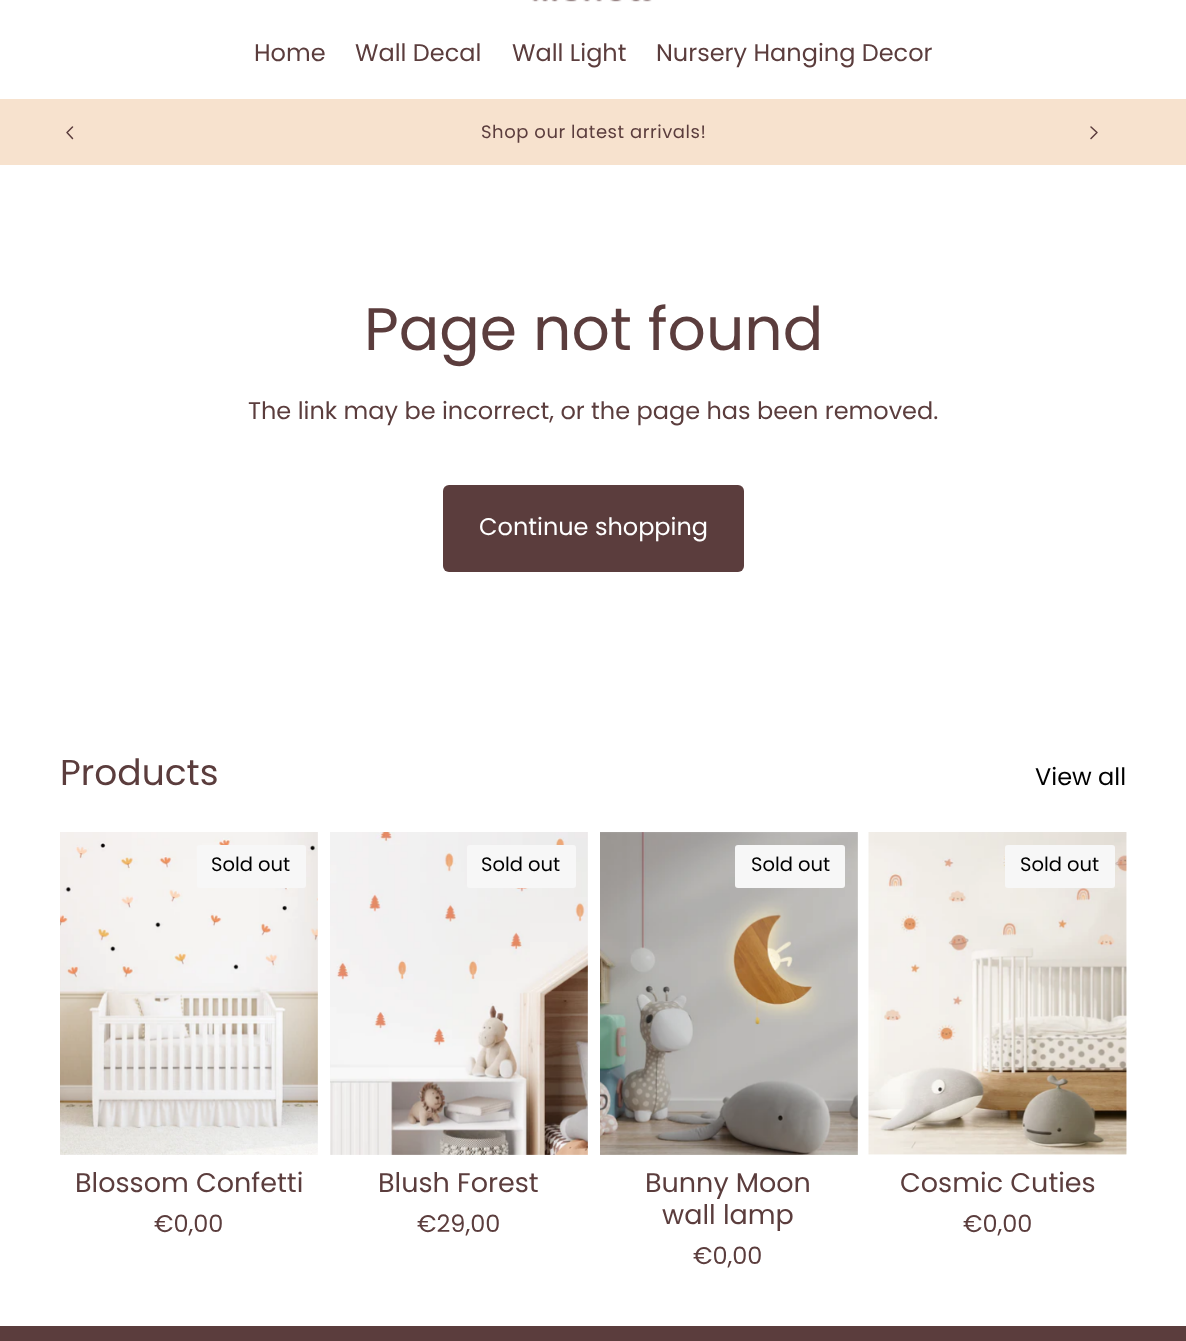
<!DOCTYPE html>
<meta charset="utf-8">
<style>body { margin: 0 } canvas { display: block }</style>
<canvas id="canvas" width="1186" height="1341"></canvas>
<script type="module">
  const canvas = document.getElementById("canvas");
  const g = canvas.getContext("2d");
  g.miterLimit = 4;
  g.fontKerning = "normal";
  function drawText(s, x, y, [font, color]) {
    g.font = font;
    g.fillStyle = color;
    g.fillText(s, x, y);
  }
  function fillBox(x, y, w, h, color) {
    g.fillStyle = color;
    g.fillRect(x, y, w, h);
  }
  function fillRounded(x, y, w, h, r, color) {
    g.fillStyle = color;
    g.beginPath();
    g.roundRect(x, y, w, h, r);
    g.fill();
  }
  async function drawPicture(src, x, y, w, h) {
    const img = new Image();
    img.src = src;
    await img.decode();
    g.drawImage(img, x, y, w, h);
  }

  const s1 = ["24px Poppins", "#5B3D3D"];
  const s2 = ["18px Poppins", "#5B3D3D"];
  const s3 = ["60px Poppins", "#5B3D3D"];
  const s4 = ["24px Poppins", "#FFFFFF"];
  const s5 = ["36px Poppins", "#5B3D3D"];
  const s6 = ["24px Poppins", "#000000"];
  const s7 = ["19.5px Poppins", "#000000"];
  const s8 = ["27px Poppins", "#5B3D3D"];

  fillBox(0, 0, 1186, 1341, "#FFFFFF");
  await drawPicture("pic1.png", 532, 0, 120, 2);
  drawText("Home", 254, 61, s1);
  drawText("Wall Decal", 355, 61, s1);
  drawText("Wall Light", 512, 61, s1);
  drawText("Nursery Hanging Decor", 656, 61, s1);
  fillBox(0, 99, 1186, 66, "#F7E2CE");
  g.letterSpacing = "0.55px";
  drawText("Shop our latest arrivals!", 481, 138, s2);
  g.beginPath();
  g.moveTo(72.5, 127);
  g.lineTo(67, 132.5);
  g.lineTo(72.5, 138.5);
  g.strokeStyle = "#5B3D3D";
  g.lineWidth = 1.5;
  g.lineCap = "round";
  g.lineJoin = "round";
  g.stroke();
  g.beginPath();
  g.moveTo(1091, 127);
  g.lineTo(1097, 132.5);
  g.lineTo(1091, 138.5);
  g.stroke();
  g.letterSpacing = "0px";
  drawText("Page not found", 364, 350, s3);
  drawText("The link may be incorrect, or the page has been removed.", 248, 419, s1);
  fillRounded(443, 485, 301, 87, 6, "#5B3D3D");
  drawText("Continue shopping", 479, 535, s4);
  drawText("Products", 60, 785, s5);
  drawText("View all", 1035, 785, s6);
  await drawPicture("pic2.png", 60, 832, 258, 323);
  fillRounded(197, 845, 109, 43, 3, "#F7F7F7");
  drawText("Sold out", 211, 871, s7);
  drawText("Blossom Confetti", 75, 1192, s8);
  drawText("€0,00", 154, 1232, s1);
  await drawPicture("pic3.png", 330, 832, 258, 323);
  fillRounded(467, 845, 109, 43, 3, "#F7F7F7");
  drawText("Sold out", 481, 871, s7);
  drawText("Blush Forest", 378, 1192, s8);
  drawText("€29,00", 417, 1232, s1);
  await drawPicture("pic4.png", 600, 832, 258, 323);
  fillRounded(735, 845, 110, 43, 3, "#F7F7F7");
  drawText("Sold out", 751, 871, s7);
  drawText("Bunny Moon", 645, 1192, s8);
  drawText("wall lamp", 662, 1224, s8);
  drawText("€0,00", 693, 1264, s1);
  await drawPicture("pic5.png", 868, 832, 259, 323);
  fillRounded(1005, 845, 110, 43, 3, "#F7F7F7");
  drawText("Sold out", 1020, 871, s7);
  drawText("Cosmic Cuties", 900, 1192, s8);
  drawText("€0,00", 963, 1232, s1);
  fillBox(0, 1326, 1186, 15, "#5B3D3D");
</script>
